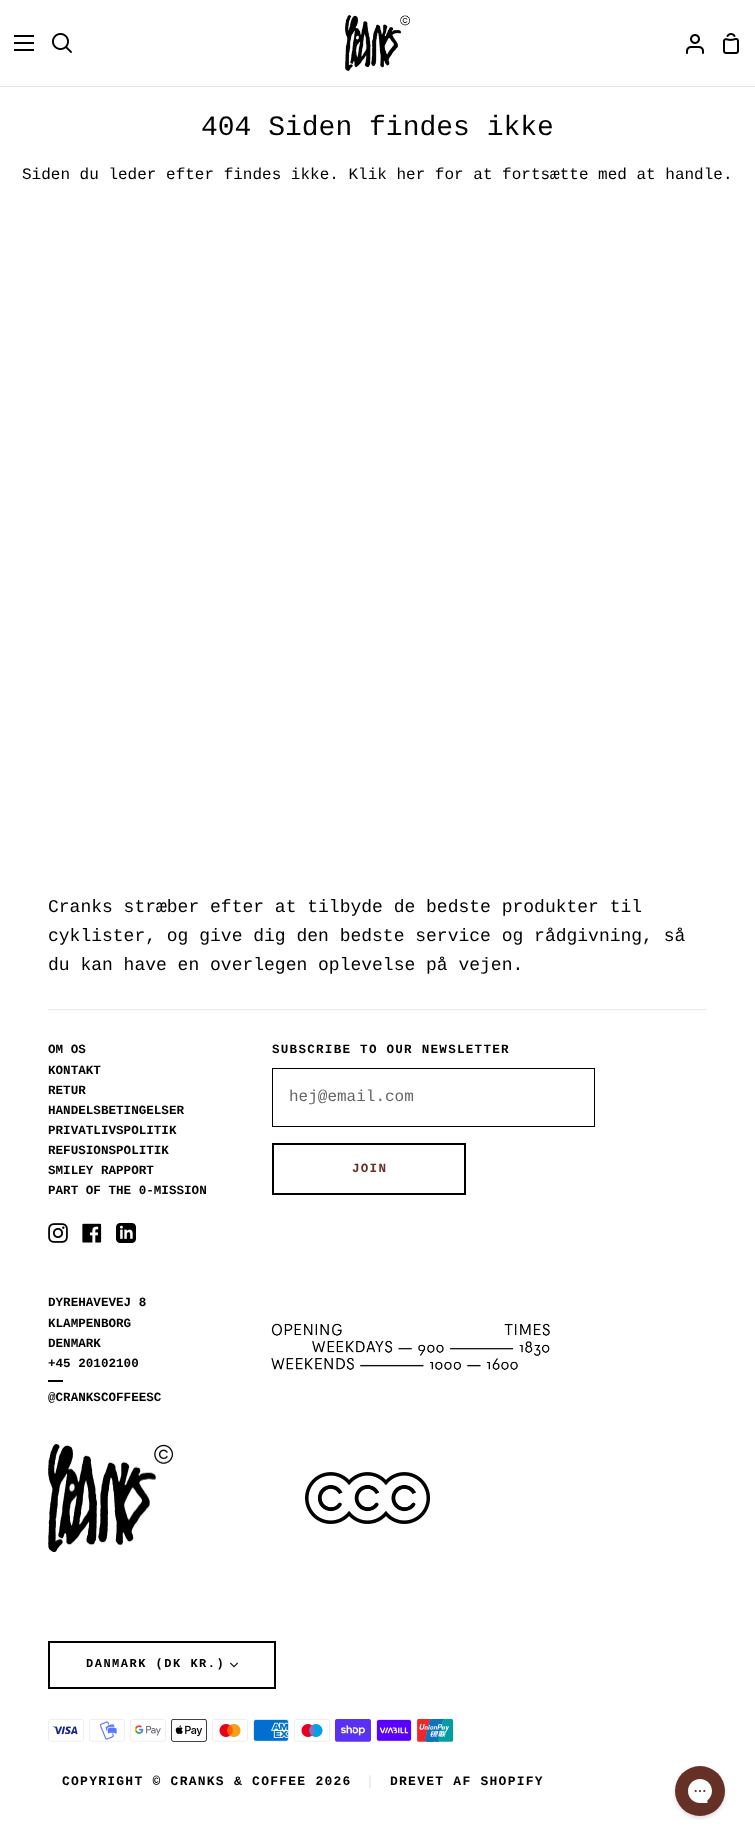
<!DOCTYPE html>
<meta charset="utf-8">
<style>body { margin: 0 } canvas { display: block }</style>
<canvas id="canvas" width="755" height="1843"></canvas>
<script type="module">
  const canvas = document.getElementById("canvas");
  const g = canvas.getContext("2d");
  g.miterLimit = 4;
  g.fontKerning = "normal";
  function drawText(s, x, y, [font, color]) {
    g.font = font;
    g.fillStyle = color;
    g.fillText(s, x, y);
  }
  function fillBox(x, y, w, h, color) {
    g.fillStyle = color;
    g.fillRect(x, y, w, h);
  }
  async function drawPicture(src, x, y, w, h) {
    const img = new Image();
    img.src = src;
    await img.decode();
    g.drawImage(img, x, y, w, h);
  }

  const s1 = ["28px Liberation Mono", "#000000"];
  const s2 = ["16px Liberation Mono", "#000000"];
  const s3 = ["18px Liberation Mono", "#000000"];
  const s4 = ["bold 12.6px Liberation Mono", "#000000"];
  const s5 = ["16px Liberation Mono", "#666666"];
  const s6 = ["bold 12.6px Liberation Mono", "#653025"];
  const s7 = ["bold 12px Liberation Mono", "#000000"];
  const s8 = ["bold 13px Liberation Mono", "#000000"];
  const s9 = ["bold 13px Liberation Mono", "#EBEBEB"];

  fillBox(0, 0, 755, 1843, "#FFFFFF");
  fillBox(0, 86, 755, 1, "#E4E4E4");
  fillBox(14, 35, 20, 2, "#000000");
  fillBox(14, 42, 20, 2, "#000000");
  fillBox(14, 49, 20, 2, "#000000");
  await drawPicture("pic1.png", 52, 33, 20, 20);
  await drawPicture("pic2.png", 345, 15, 65, 56);
  await drawPicture("pic3.png", 686, 34, 18, 20);
  await drawPicture("pic4.png", 723, 33, 16, 21);
  drawText("404 Siden findes ikke", 201, 135, s1);
  drawText("Siden du leder efter findes ikke. Klik her for at fortsætte med at handle.", 22, 179, s2);
  drawText("Cranks stræber efter at tilbyde de bedste produkter til", 48, 912, s3);
  drawText("cyklister, og give dig den bedste service og rådgivning, så", 48, 941, s3);
  drawText("du kan have en overlegen oplevelse på vejen.", 48, 970, s3);
  fillBox(48, 1009, 659, 1, "#EBEBEB");
  drawText("OM OS", 48, 1053, s4);
  drawText("KONTAKT", 48, 1074, s4);
  drawText("RETUR", 48, 1094, s4);
  drawText("HANDELSBETINGELSER", 48, 1114, s4);
  drawText("PRIVATLIVSPOLITIK", 48, 1134, s4);
  drawText("REFUSIONSPOLITIK", 48, 1154, s4);
  drawText("SMILEY RAPPORT", 48, 1174, s4);
  drawText("PART OF THE 0-MISSION", 48, 1194, s4);
  await drawPicture("pic5.png", 48, 1223, 20, 20);
  await drawPicture("pic6.png", 82, 1223, 20, 20);
  await drawPicture("pic7.png", 116, 1223, 20, 20);
  g.letterSpacing = "1.25px";
  drawText("SUBSCRIBE TO OUR NEWSLETTER", 272, 1053, s4);
  g.strokeStyle = "#000000";
  g.strokeRect(272.5, 1068.5, 322, 58);
  g.letterSpacing = "0px";
  drawText("hej@email.com", 289, 1101, s5);
  g.lineWidth = 2;
  g.strokeRect(273, 1144, 192, 50);
  g.letterSpacing = "1.25px";
  drawText("JOIN", 352, 1172, s6);
  g.letterSpacing = "0px";
  drawText("DYREHAVEVEJ 8", 48, 1306, s4);
  drawText("KLAMPENBORG", 48, 1327, s4);
  drawText("DENMARK", 48, 1347, s4);
  drawText("+45 20102100", 48, 1367, s4);
  fillBox(48, 1380, 15, 2, "#000000");
  drawText("@CRANKSCOFFEESC", 48, 1401, s4);
  await drawPicture("pic8.png", 271, 1323, 279, 47);
  await drawPicture("pic9.png", 48, 1444, 125, 108);
  await drawPicture("pic10.png", 305, 1472, 125, 52);
  g.strokeRect(49, 1642, 226, 46);
  g.letterSpacing = "1.5px";
  drawText("DANMARK (DK KR.)", 86, 1667, s7);
  await drawPicture("pic11.png", 230, 1662, 8, 6);
  await drawPicture("pic12.png", 48, 1719, 36, 23);
  await drawPicture("pic13.png", 89, 1719, 36, 23);
  await drawPicture("pic14.png", 130, 1719, 36, 23);
  await drawPicture("pic15.png", 171, 1719, 36, 23);
  await drawPicture("pic16.png", 212, 1719, 36, 23);
  await drawPicture("pic17.png", 253, 1719, 36, 23);
  await drawPicture("pic18.png", 294, 1719, 36, 23);
  await drawPicture("pic19.png", 335, 1719, 36, 23);
  await drawPicture("pic20.png", 376, 1719, 36, 23);
  await drawPicture("pic21.png", 417, 1719, 36, 23);
  g.letterSpacing = "1.25px";
  drawText("COPYRIGHT © CRANKS & COFFEE 2026", 62, 1785, s8);
  drawText("|", 366, 1785, s9);
  drawText("DREVET AF SHOPIFY", 390, 1785, s8);
  await drawPicture("pic22.png", 673, 1766, 54, 54);
</script>
